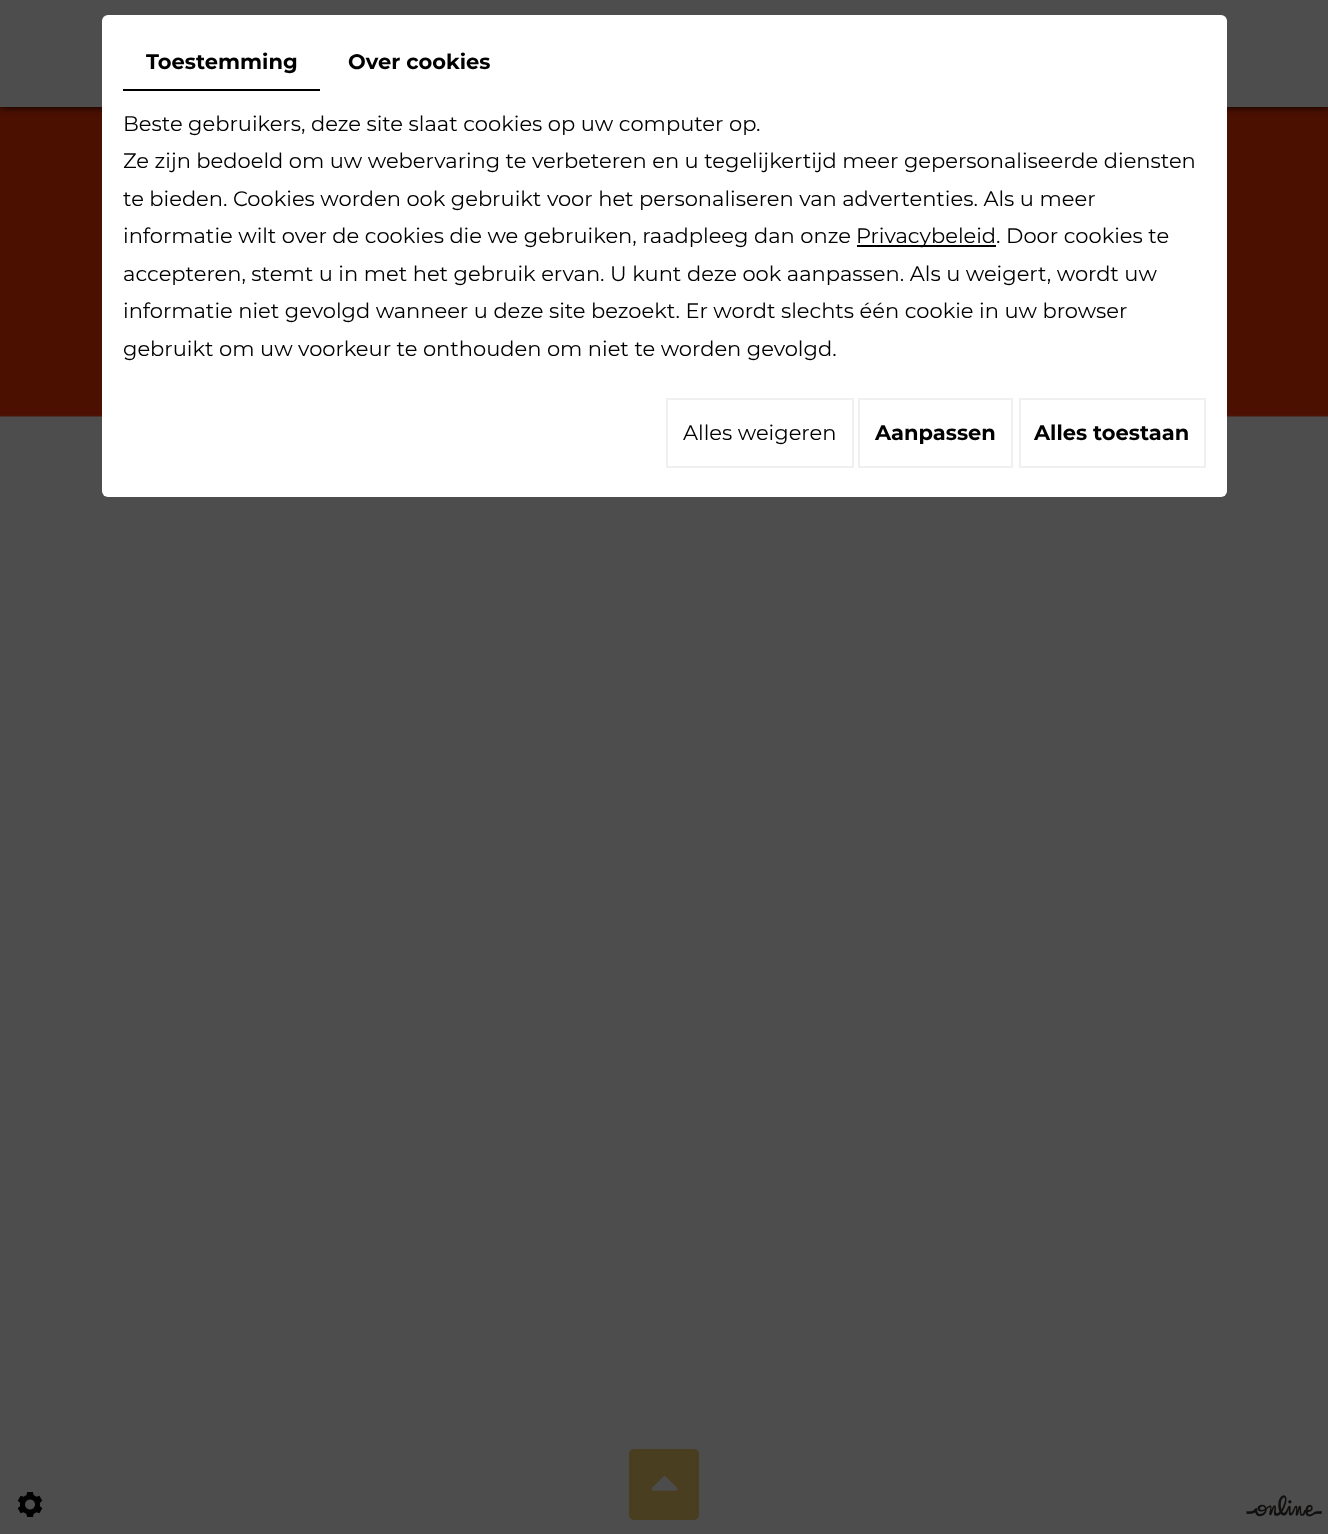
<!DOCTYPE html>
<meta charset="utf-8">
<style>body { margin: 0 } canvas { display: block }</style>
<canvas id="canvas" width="1328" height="1534"></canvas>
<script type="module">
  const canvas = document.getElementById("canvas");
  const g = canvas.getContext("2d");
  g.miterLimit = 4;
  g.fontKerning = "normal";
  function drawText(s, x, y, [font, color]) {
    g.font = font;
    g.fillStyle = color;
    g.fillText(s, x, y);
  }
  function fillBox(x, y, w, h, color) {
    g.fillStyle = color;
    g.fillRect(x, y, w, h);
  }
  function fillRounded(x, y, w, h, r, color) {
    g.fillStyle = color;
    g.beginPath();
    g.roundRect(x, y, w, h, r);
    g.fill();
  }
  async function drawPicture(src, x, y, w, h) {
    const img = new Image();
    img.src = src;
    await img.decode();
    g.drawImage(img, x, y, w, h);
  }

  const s1 = ["bold 21px Montserrat", "#000000"];
  const s2 = ["21px Montserrat", "#000000"];

  fillBox(0, 0, 1328, 1534, "#4D4D4D");
  await drawPicture("pic1.png", 0, 107, 1328, 310);
  g.fillStyle = "#000000";
  g.filter = "blur(4px)";
  g.beginPath();
  g.rect(0, 0, 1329, 107);
  g.fill();
  g.filter = "none";
  fillBox(0, 0, 1328, 107, "#4D4D4D");
  fillRounded(102, 15, 1125, 482, 6, "#FFFFFF");
  fillBox(123, 89, 197, 2, "#000000");
  drawText("Toestemming", 146, 69, s1);
  drawText("Over cookies", 348, 69, s1);
  drawText("Beste gebruikers, deze site slaat cookies op uw computer op.", 123, 131, s2);
  drawText("Ze zijn bedoeld om uw webervaring te verbeteren en u tegelijkertijd meer gepersonaliseerde diensten", 123, 168, s2);
  drawText("te bieden. Cookies worden ook gebruikt voor het personaliseren van advertenties. Als u meer", 123, 206, s2);
  drawText("informatie wilt over de cookies die we gebruiken, raadpleeg dan onze", 123, 243, s2);
  fillBox(857, 245, 139, 2, "#000000");
  drawText("Privacybeleid. Door cookies te", 856, 243, s2);
  drawText("accepteren, stemt u in met het gebruik ervan. U kunt deze ook aanpassen. Als u weigert, wordt uw", 123, 281, s2);
  drawText("informatie niet gevolgd wanneer u deze site bezoekt. Er wordt slechts één cookie in uw browser", 123, 318, s2);
  drawText("gebruikt om uw voorkeur te onthouden om niet te worden gevolgd.", 123, 356, s2);
  g.strokeStyle = "#F0F0F0";
  g.lineWidth = 2;
  g.strokeRect(667, 399, 186, 68);
  drawText("Alles weigeren", 683, 440, s2);
  g.strokeRect(859, 399, 153, 68);
  drawText("Aanpassen", 875, 440, s1);
  g.strokeRect(1020, 399, 185, 68);
  drawText("Alles toestaan", 1034, 440, s1);
  await drawPicture("pic2.png", 17, 1492, 26, 25);
  await drawPicture("pic3.png", 1246, 1495, 76, 22);
  fillRounded(629, 1449, 70, 71, 5, "#4A3E21");
  await drawPicture("pic4.png", 651, 1476, 27, 15);
</script>
